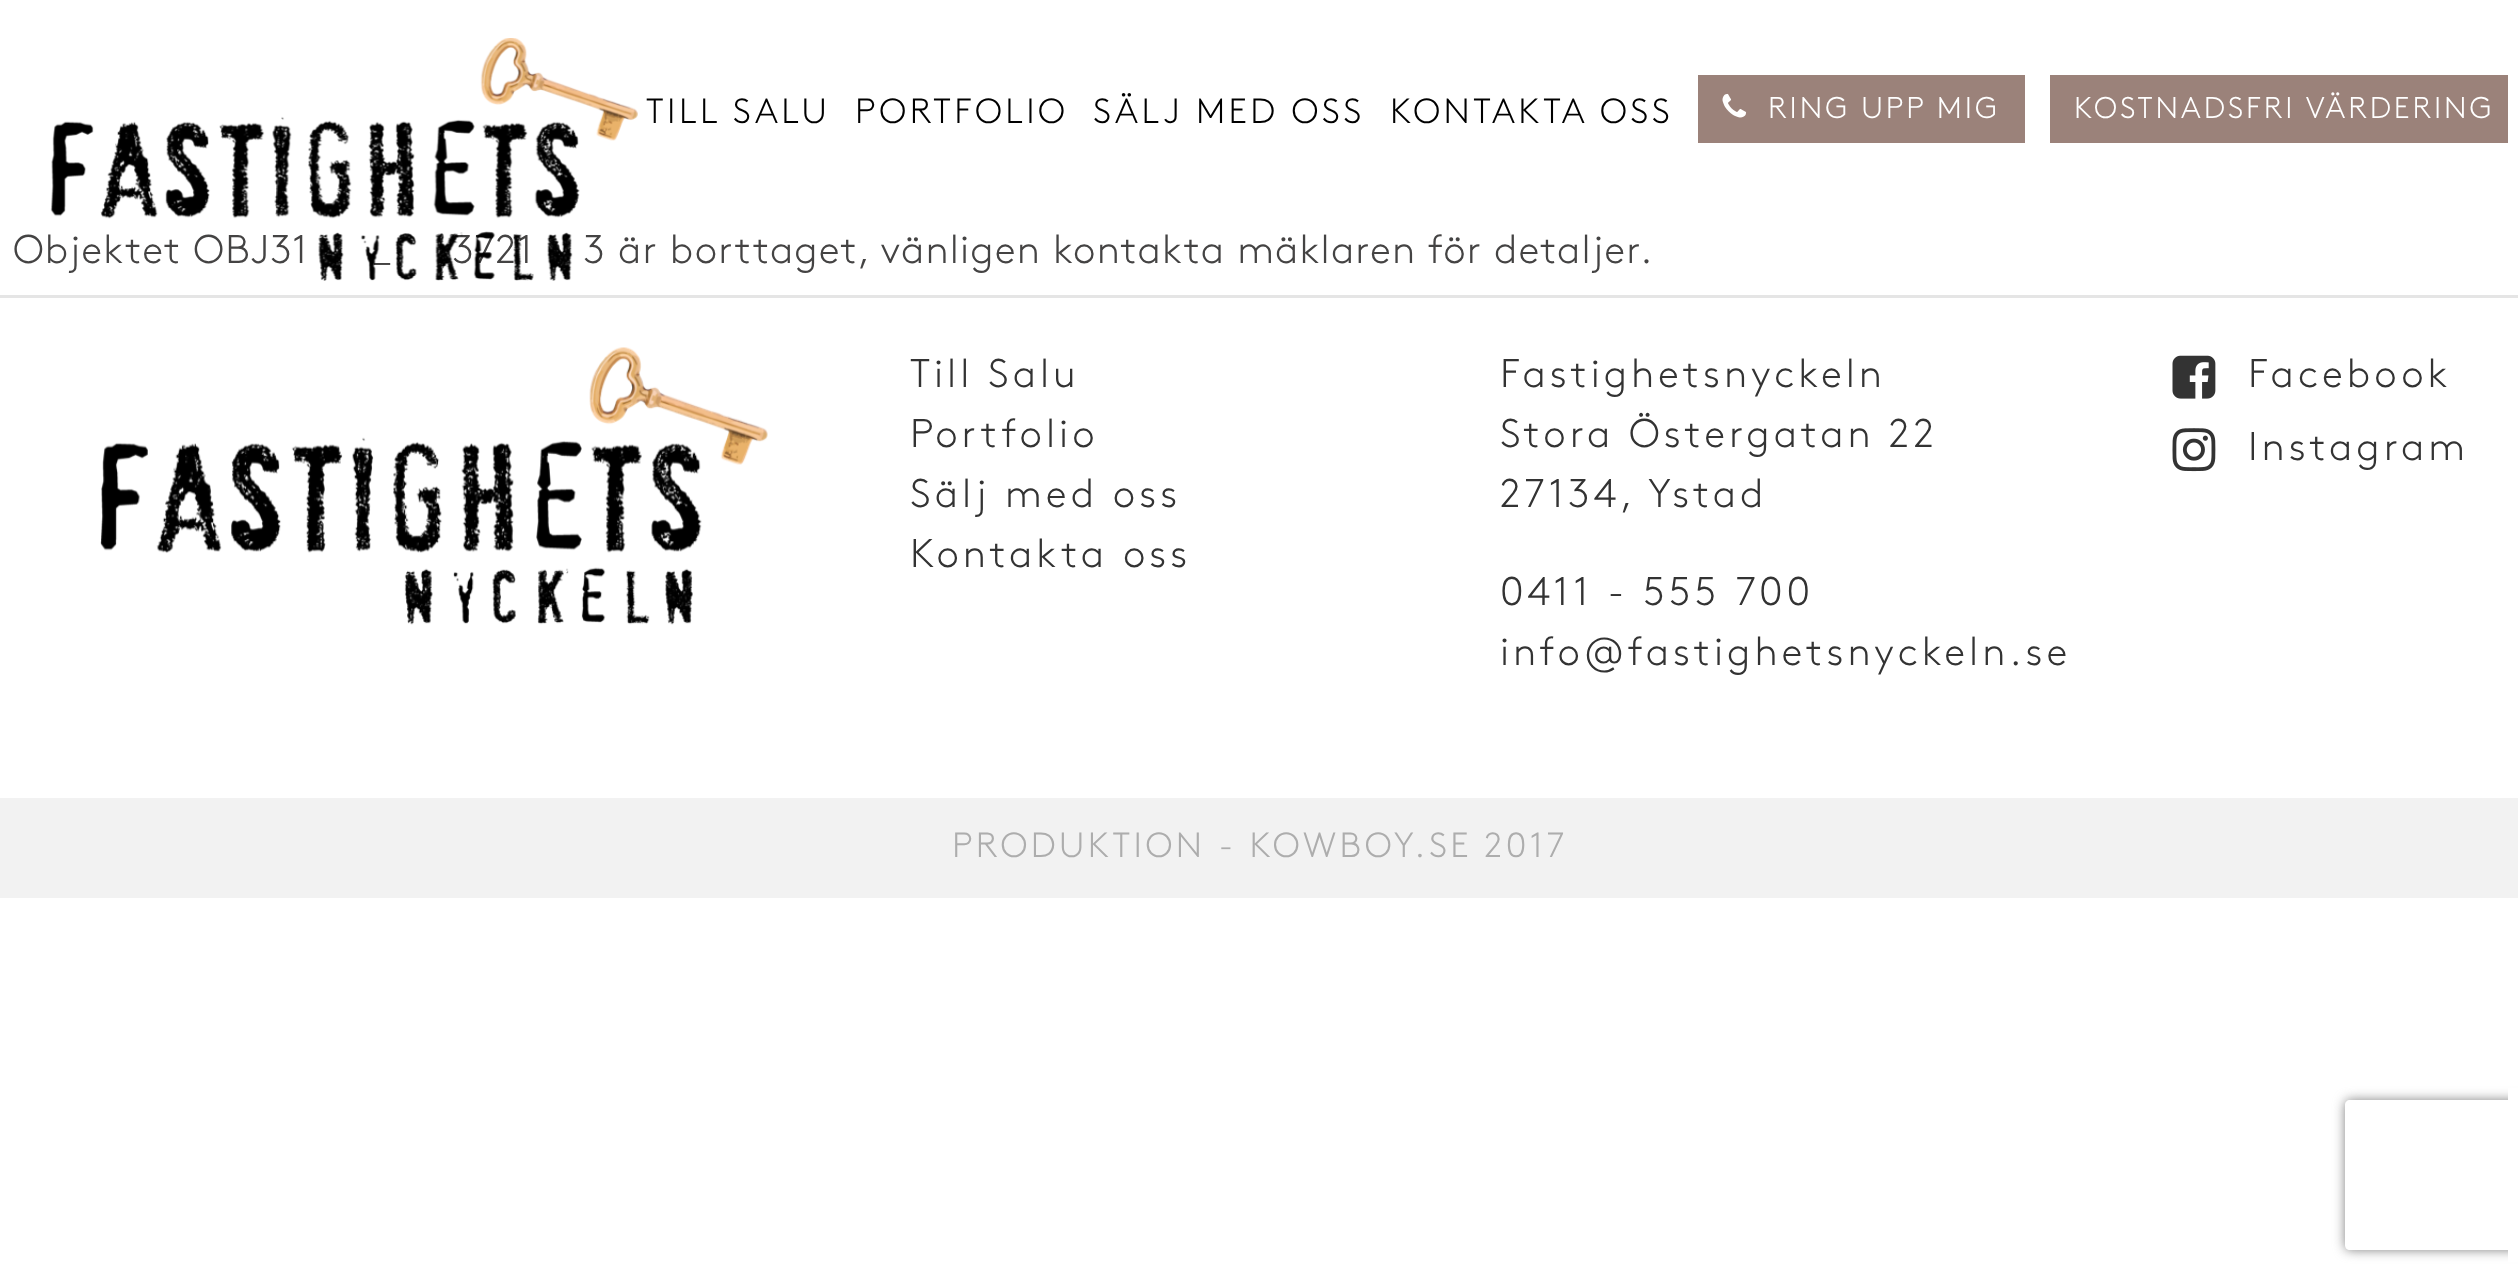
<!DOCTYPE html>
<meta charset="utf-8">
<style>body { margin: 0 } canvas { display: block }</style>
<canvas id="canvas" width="2518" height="1284"></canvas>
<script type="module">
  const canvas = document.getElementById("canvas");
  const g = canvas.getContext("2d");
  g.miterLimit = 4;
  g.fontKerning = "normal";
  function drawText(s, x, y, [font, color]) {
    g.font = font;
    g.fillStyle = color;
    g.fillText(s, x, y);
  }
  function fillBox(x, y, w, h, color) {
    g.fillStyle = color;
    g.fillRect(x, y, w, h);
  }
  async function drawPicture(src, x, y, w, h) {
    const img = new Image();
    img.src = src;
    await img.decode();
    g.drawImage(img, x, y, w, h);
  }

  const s1 = ["300 40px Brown", "#444343"];
  const s2 = ["300 35px Brown", "#000000"];
  const s3 = ["300 30px Brown", "#FFFFFF"];
  const s4 = ["300 40px Brown", "#333333"];
  const s5 = ["300 35px Brown", "#ADADAD"];

  fillBox(0, 0, 2518, 1284, "#FFFFFF");
  g.letterSpacing = "1.2px";
  drawText("Objektet OBJ31", 13, 263, s1);
  drawText("_", 373, 263, s1);
  drawText("3721", 452, 263, s1);
  drawText("3 är borttaget, vänligen kontakta mäklaren för detaljer.", 583, 263, s1);
  await drawPicture("pic1.png", 50, 38, 588, 243);
  g.letterSpacing = "3.5px";
  drawText("TILL SALU", 646, 123, s2);
  drawText("PORTFOLIO", 855, 123, s2);
  drawText("SÄLJ MED OSS", 1093, 123, s2);
  drawText("KONTAKTA OSS", 1390, 123, s2);
  fillBox(1698, 75, 327, 68, "#9B827A");
  await drawPicture("pic2.png", 1722, 93, 25, 25);
  g.letterSpacing = "3px";
  drawText("RING UPP MIG", 1768, 118, s3);
  fillBox(2050, 75, 458, 68, "#9B827A");
  drawText("KOSTNADSFRI VÄRDERING", 2074, 118, s3);
  g.save();
  g.beginPath();
  g.moveTo(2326, 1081);
  g.lineTo(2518, 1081);
  g.lineTo(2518, 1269);
  g.lineTo(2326, 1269);
  g.closePath();
  g.moveTo(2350, 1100);
  g.lineTo(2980, 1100);
  g.bezierCurveTo(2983, 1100, 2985, 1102, 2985, 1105);
  g.lineTo(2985, 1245);
  g.bezierCurveTo(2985, 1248, 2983, 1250, 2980, 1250);
  g.lineTo(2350, 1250);
  g.bezierCurveTo(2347, 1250, 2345, 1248, 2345, 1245);
  g.lineTo(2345, 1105);
  g.bezierCurveTo(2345, 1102, 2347, 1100, 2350, 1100);
  g.closePath();
  g.clip("evenodd");
  g.fillStyle = "#808080";
  g.filter = "blur(6px)";
  g.beginPath();
  g.roundRect(2345, 1100, 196, 150, 5);
  g.fill();
  g.filter = "none";
  g.restore();
  fillBox(2508, 1088, 10, 174, "#FFFFFF");
  fillBox(0, 295, 2518, 3, "#E5E5E5");
  await drawPicture("pic3.png", 100, 347, 668, 278);
  g.letterSpacing = "4px";
  drawText("Till Salu", 910, 387, s4);
  drawText("Portfolio", 910, 447, s4);
  drawText("Sälj med oss", 910, 507, s4);
  drawText("Kontakta oss", 910, 567, s4);
  drawText("Fastighetsnyckeln", 1500, 387, s4);
  drawText("Stora Östergatan 22", 1500, 447, s4);
  drawText("27134, Ystad", 1500, 507, s4);
  drawText("0411 - 555 700", 1500, 605, s4);
  drawText("info@fastighetsnyckeln.se", 1500, 665, s4);
  await drawPicture("pic4.png", 2172, 355, 44, 44);
  drawText("Facebook", 2248, 387, s4);
  await drawPicture("pic5.png", 2172, 428, 44, 44);
  drawText("Instagram", 2248, 460, s4);
  fillBox(0, 798, 2518, 100, "#F2F2F2");
  g.letterSpacing = "3.5px";
  drawText("PRODUKTION - KOWBOY.SE 2017", 952, 857, s5);
</script>
